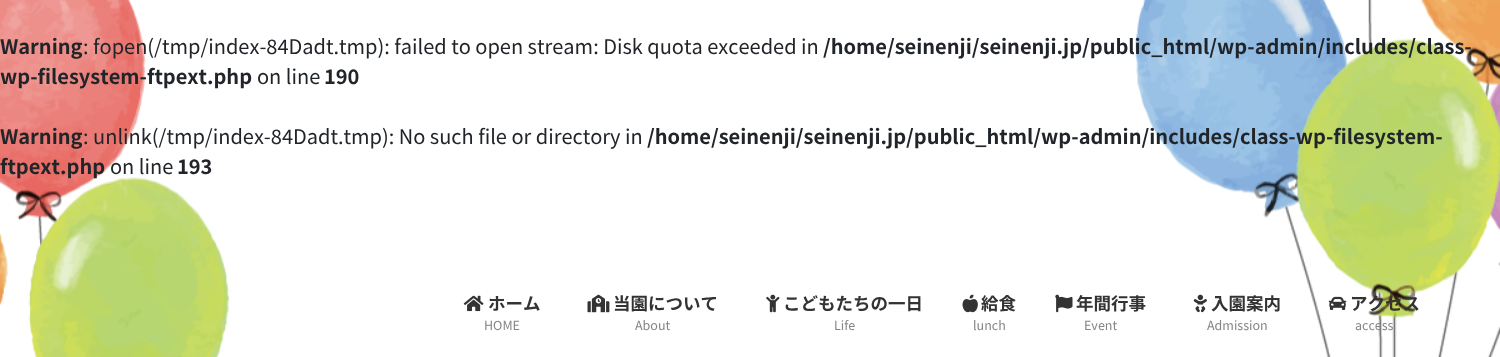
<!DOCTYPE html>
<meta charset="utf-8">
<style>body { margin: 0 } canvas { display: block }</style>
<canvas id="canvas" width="1500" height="357"></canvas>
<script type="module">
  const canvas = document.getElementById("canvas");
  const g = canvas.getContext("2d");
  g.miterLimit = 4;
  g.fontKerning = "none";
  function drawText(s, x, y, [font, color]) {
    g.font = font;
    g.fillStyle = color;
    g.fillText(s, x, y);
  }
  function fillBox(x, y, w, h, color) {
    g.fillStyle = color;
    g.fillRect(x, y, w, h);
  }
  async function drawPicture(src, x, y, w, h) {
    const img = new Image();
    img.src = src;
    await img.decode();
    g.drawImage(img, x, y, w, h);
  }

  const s1 = ["bold 20px Noto Sans JP", "#212529"];
  const s2 = ["20px Noto Sans JP", "#212529"];
  const s3 = ["bold 17.5px Noto Sans JP", "#333333"];
  const s4 = ["12.5px Noto Sans JP", "#858585"];

  fillBox(0, 0, 1500, 357, "#FFFFFF");
  await drawPicture("pic1.png", 0, 0, 1500, 357);
  drawText("Warning", 0, 54, s1);
  drawText(": fopen(/tmp/index-84Dadt.tmp): failed to open stream: Disk quota exceeded", 83, 54, s2);
  drawText("in", 801, 54, s2);
  drawText("/home/seinenji/seinenji.jp/public_html/wp-admin/includes/class-", 823, 54, s1);
  drawText("wp-filesystem-ftpext.php", 0, 84, s1);
  drawText("on line", 257, 84, s2);
  drawText("190", 324, 84, s1);
  drawText("Warning", 0, 144, s1);
  drawText(": unlink(/tmp/index-84Dadt.tmp): No such file or directory in", 83, 144, s2);
  drawText("/home/seinenji/seinenji.jp/public_html/wp-admin/includes/class-wp-filesystem-", 647, 144, s1);
  drawText("ftpext.php", 0, 174, s1);
  drawText("on line", 110, 174, s2);
  drawText("193", 177, 174, s1);
  await drawPicture("pic2.png", 463, 295, 21, 17);
  drawText("ホーム", 488, 310, s3);
  drawText("HOME", 484, 330, s4);
  await drawPicture("pic3.png", 587, 294, 23, 19);
  drawText("当園について", 613, 310, s3);
  drawText("About", 635, 330, s4);
  await drawPicture("pic4.png", 766, 294, 14, 19);
  drawText("こどもたちの一日", 783, 310, s3);
  drawText("Life", 834, 330, s4);
  await drawPicture("pic5.png", 962, 294, 16, 19);
  drawText("給食", 981, 310, s3);
  drawText("lunch", 973, 330, s4);
  await drawPicture("pic6.png", 1055, 294, 18, 19);
  drawText("年間行事", 1076, 310, s3);
  drawText("Event", 1084, 330, s4);
  await drawPicture("pic7.png", 1193, 294, 14, 19);
  drawText("入園案内", 1211, 310, s3);
  drawText("Admission", 1207, 330, s4);
  await drawPicture("pic8.png", 1328, 296, 19, 14);
  drawText("アクセス", 1350, 310, s3);
  drawText("access", 1355, 330, s4);
</script>
